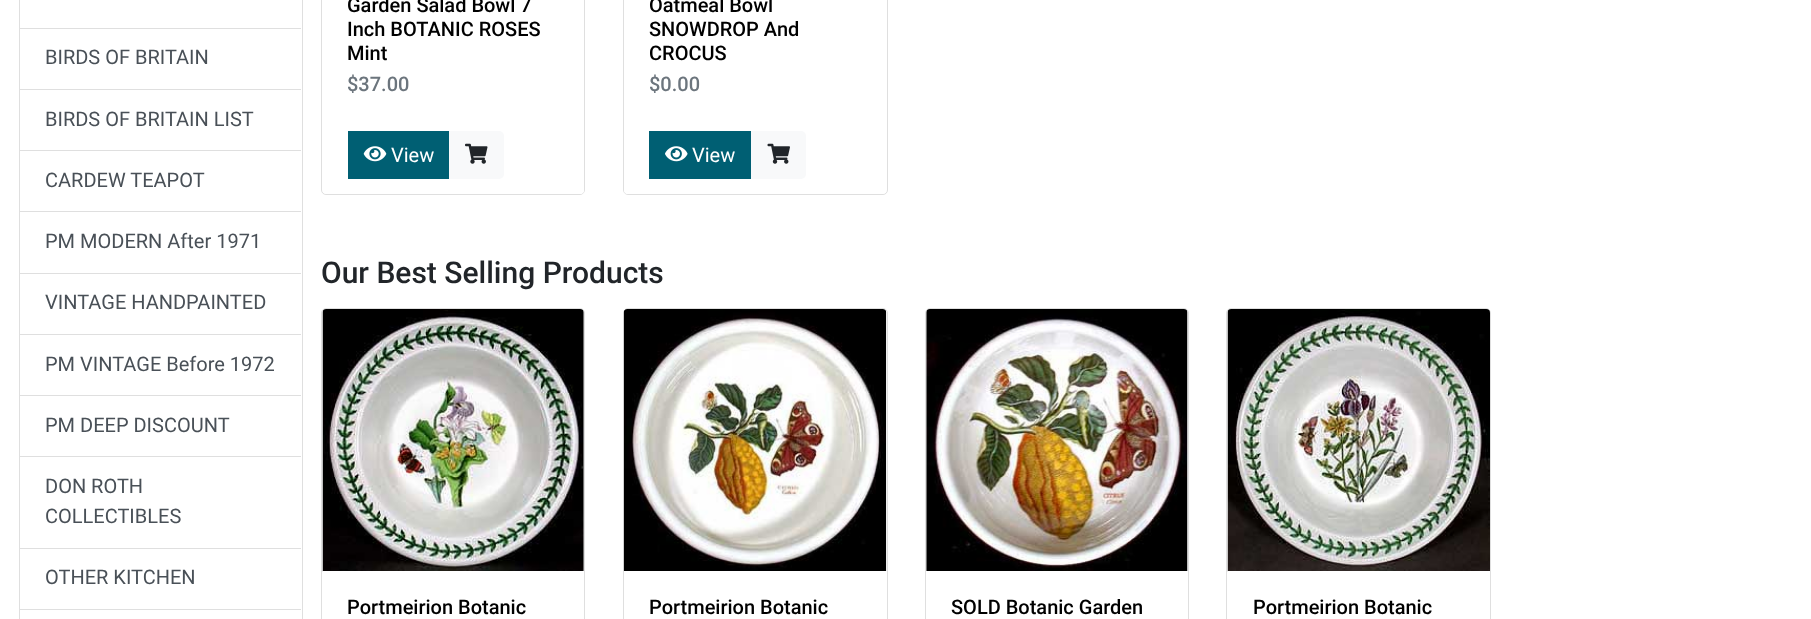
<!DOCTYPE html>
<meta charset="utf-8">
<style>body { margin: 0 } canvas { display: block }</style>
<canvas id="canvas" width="1811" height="619"></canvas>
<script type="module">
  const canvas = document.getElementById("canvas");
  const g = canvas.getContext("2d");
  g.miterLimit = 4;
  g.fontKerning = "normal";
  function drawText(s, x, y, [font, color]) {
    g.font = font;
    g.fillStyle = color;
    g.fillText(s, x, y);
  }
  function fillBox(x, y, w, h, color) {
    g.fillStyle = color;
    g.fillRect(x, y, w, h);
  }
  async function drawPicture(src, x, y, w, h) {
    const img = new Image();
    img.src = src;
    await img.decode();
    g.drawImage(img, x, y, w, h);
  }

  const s1 = ["20px Roboto", "#495057"];
  const s2 = ["500 20px Roboto", "#000000"];
  const s3 = ["500 20px Roboto", "#6C757D"];
  const s4 = ["20px Roboto", "#FFFFFF"];
  const s5 = ["500 30px Roboto", "#212529"];

  fillBox(0, 0, 1811, 619, "#FFFFFF");
  g.strokeStyle = "#DFDFDF";
  g.strokeRect(19.5, -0.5, 283, 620);
  fillBox(20, 28, 281, 1, "#DFDFDF");
  fillBox(20, 89, 281, 1, "#DFDFDF");
  drawText("BIRDS OF BRITAIN", 45, 64, s1);
  fillBox(20, 150, 281, 1, "#DFDFDF");
  drawText("BIRDS OF BRITAIN LIST", 45, 126, s1);
  fillBox(20, 211, 281, 1, "#DFDFDF");
  drawText("CARDEW TEAPOT", 45, 187, s1);
  fillBox(20, 273, 281, 1, "#DFDFDF");
  drawText("PM MODERN After 1971", 45, 248, s1);
  fillBox(20, 334, 281, 1, "#DFDFDF");
  drawText("VINTAGE HANDPAINTED", 45, 309, s1);
  fillBox(20, 395, 281, 1, "#DFDFDF");
  drawText("PM VINTAGE Before 1972", 45, 371, s1);
  fillBox(20, 456, 281, 1, "#DFDFDF");
  drawText("PM DEEP DISCOUNT", 45, 432, s1);
  fillBox(20, 548, 281, 1, "#DFDFDF");
  drawText("DON ROTH", 45, 493, s1);
  drawText("COLLECTIBLES", 45, 523, s1);
  fillBox(20, 609, 281, 1, "#DFDFDF");
  drawText("OTHER KITCHEN", 45, 584, s1);
  g.beginPath();
  g.roundRect(321.5, -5.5, 263, 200, 4.5);
  g.stroke();
  drawText("Garden Salad Bowl 7", 347, 12, s2);
  drawText("Inch BOTANIC ROSES", 347, 36, s2);
  drawText("Mint", 347, 60, s2);
  drawText("$37.00", 347, 91, s3);
  g.fillStyle = "#FFFFFF";
  g.beginPath();
  g.roundRect(323, 131, 261, 63, [0, 0, 4, 4]);
  g.fill();
  fillBox(348, 131, 101, 48, "#005F73");
  await drawPicture("pic1.png", 363, 146, 24, 16);
  drawText("View", 391, 162, s4);
  g.fillStyle = "#F8F9FA";
  g.beginPath();
  g.roundRect(449, 131, 55, 48, [0, 5, 5, 0]);
  g.fill();
  await drawPicture("pic2.png", 465, 143, 23, 21);
  g.beginPath();
  g.roundRect(623.5, -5.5, 264, 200, 4.5);
  g.stroke();
  drawText("Oatmeal Bowl", 649, 12, s2);
  drawText("SNOWDROP And", 649, 36, s2);
  drawText("CROCUS", 649, 60, s2);
  drawText("$0.00", 649, 91, s3);
  g.fillStyle = "#FFFFFF";
  g.beginPath();
  g.roundRect(624, 131, 262, 63, [0, 0, 4, 4]);
  g.fill();
  fillBox(649, 131, 102, 48, "#005F73");
  await drawPicture("pic3.png", 665, 146, 23, 16);
  drawText("View", 692, 162, s4);
  g.fillStyle = "#F8F9FA";
  g.beginPath();
  g.roundRect(751, 131, 55, 48, [0, 5, 5, 0]);
  g.fill();
  await drawPicture("pic4.png", 767, 143, 23, 21);
  drawText("Our Best Selling Products", 321, 283, s5);
  g.beginPath();
  g.roundRect(321.5, 308.5, 263, 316, 4.5);
  g.stroke();
  await drawPicture("pic5.png", 322, 309, 262, 263);
  fillBox(323, 571, 261, 1, "#FFFFFF");
  drawText("Portmeirion Botanic", 347, 614, s2);
  g.beginPath();
  g.roundRect(623.5, 308.5, 264, 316, 4.5);
  g.stroke();
  await drawPicture("pic6.png", 623, 309, 264, 262);
  drawText("Portmeirion Botanic", 649, 614, s2);
  g.beginPath();
  g.roundRect(925.5, 308.5, 263, 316, 4.5);
  g.stroke();
  await drawPicture("pic7.png", 926, 309, 262, 262);
  drawText("SOLD Botanic Garden", 951, 614, s2);
  g.beginPath();
  g.roundRect(1226.5, 308.5, 264, 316, 4.5);
  g.stroke();
  await drawPicture("pic8.png", 1227, 309, 263, 263);
  fillBox(1228, 571, 262, 1, "#FFFFFF");
  drawText("Portmeirion Botanic", 1253, 614, s2);
</script>
